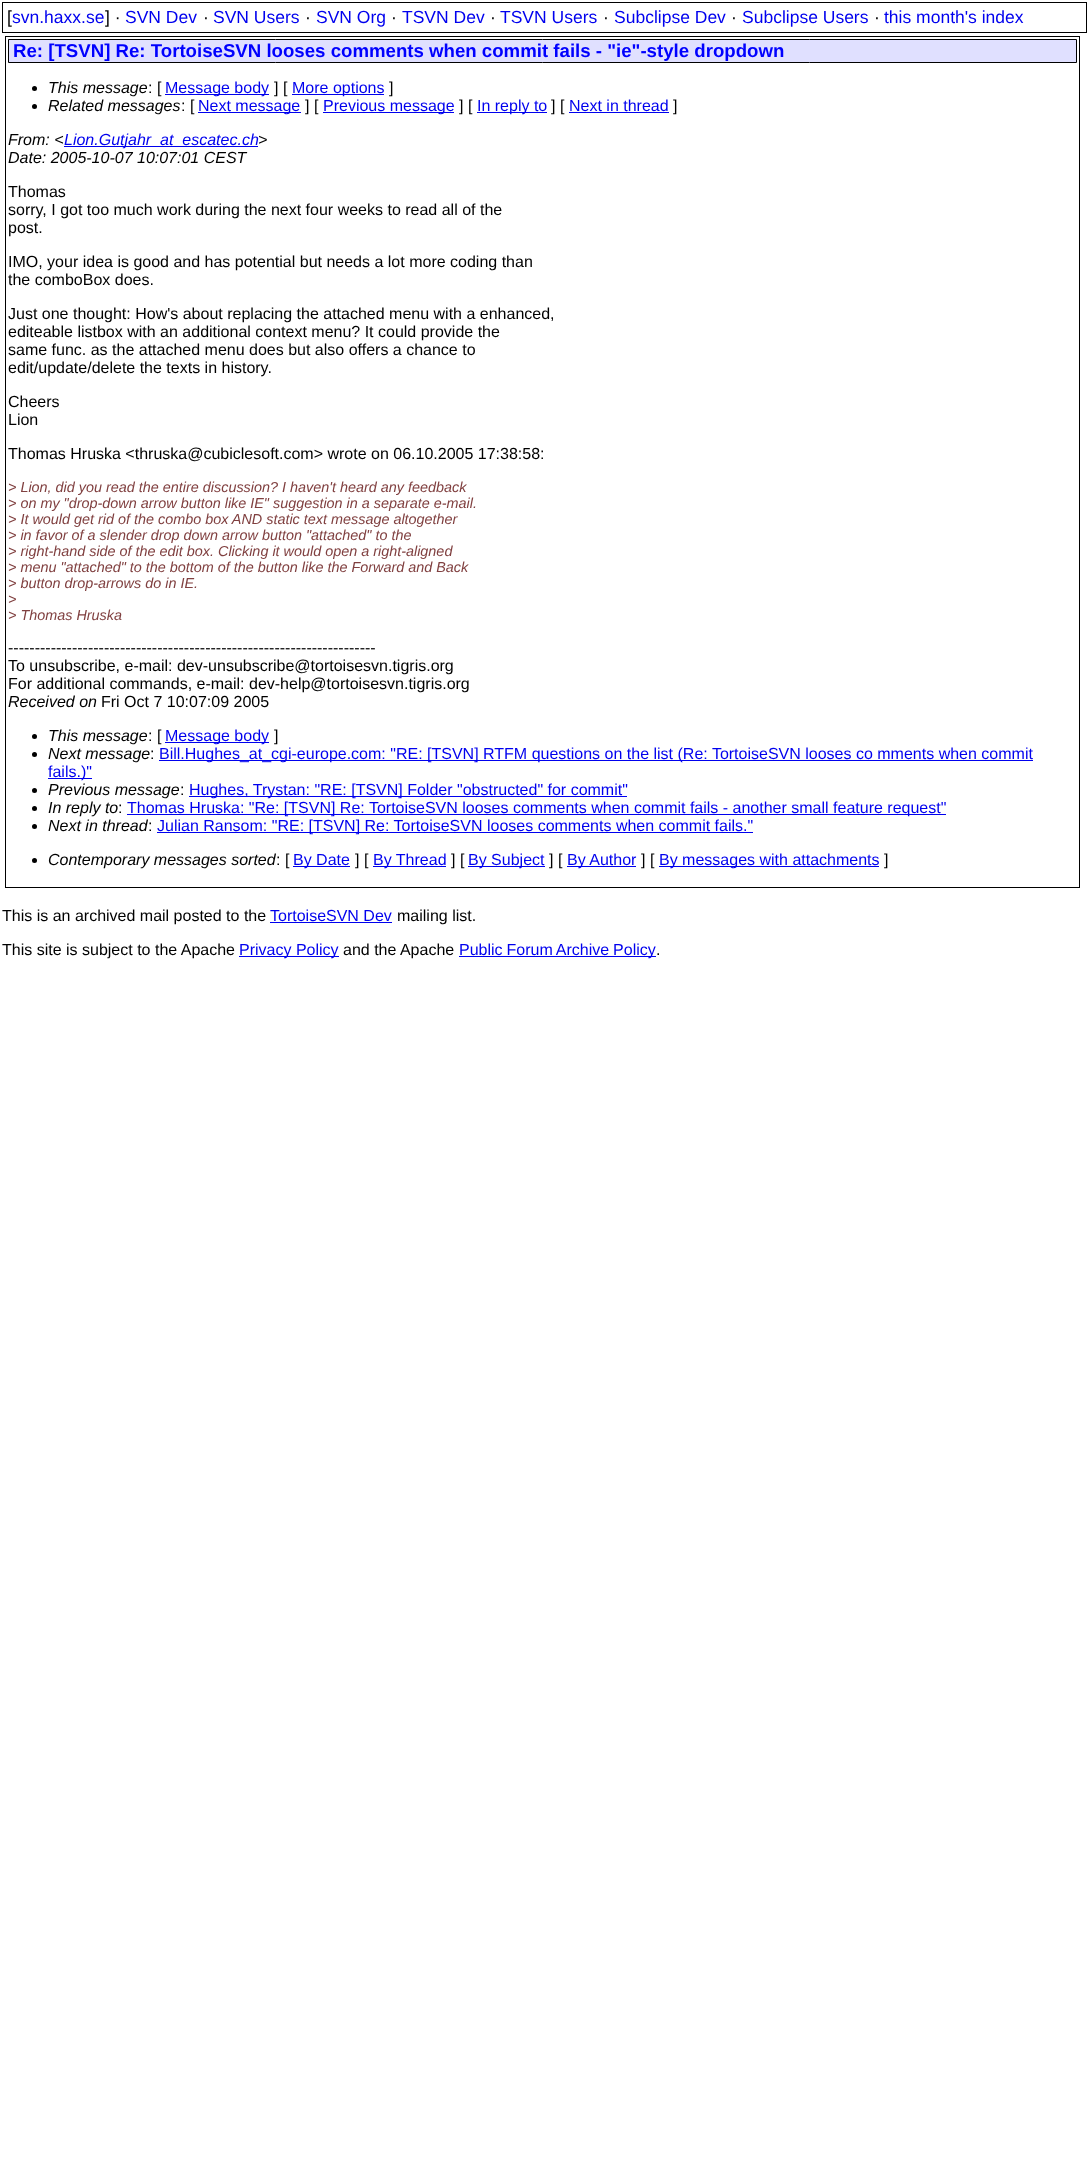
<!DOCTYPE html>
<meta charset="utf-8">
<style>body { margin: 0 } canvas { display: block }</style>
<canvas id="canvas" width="1089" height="2162"></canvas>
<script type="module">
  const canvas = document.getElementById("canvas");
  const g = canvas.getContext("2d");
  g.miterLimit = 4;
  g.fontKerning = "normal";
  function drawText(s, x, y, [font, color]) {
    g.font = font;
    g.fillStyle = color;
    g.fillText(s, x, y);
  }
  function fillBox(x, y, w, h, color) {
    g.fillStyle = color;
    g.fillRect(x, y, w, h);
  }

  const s1 = ["17.5px Liberation Sans", "#000000"];
  const s2 = ["17.5px Liberation Sans", "#0000EE"];
  const s3 = ["bold 18.65px Liberation Sans", "#0000FF"];
  const s4 = ["italic 16px Liberation Sans", "#000000"];
  const s5 = ["16px Liberation Sans", "#000000"];
  const s6 = ["16px Liberation Sans", "#0000EE"];
  const s7 = ["italic 16px Liberation Sans", "#0000EE"];
  const s8 = ["italic 14.4px Liberation Sans", "#804040"];

  fillBox(0, 0, 1089, 2162, "#FFFFFF");
  g.strokeStyle = "#000000";
  g.strokeRect(2.5, 2.5, 1084, 30);
  drawText("[", 7, 23, s1);
  drawText("svn.haxx.se", 12, 23, s2);
  drawText("] ·", 105, 23, s1);
  drawText("SVN Dev", 125, 23, s2);
  drawText("·", 203, 23, s1);
  drawText("SVN Users", 213, 23, s2);
  drawText("·", 305, 23, s1);
  drawText("SVN Org", 316, 23, s2);
  drawText("·", 391, 23, s1);
  drawText("TSVN Dev", 402, 23, s2);
  drawText("·", 490, 23, s1);
  drawText("TSVN Users", 500, 23, s2);
  drawText("·", 603, 23, s1);
  drawText("Subclipse Dev", 614, 23, s2);
  drawText("·", 731, 23, s1);
  drawText("Subclipse Users", 742, 23, s2);
  drawText("·", 874, 23, s1);
  drawText("this month's index", 884, 23, s2);
  g.strokeRect(5.5, 36.5, 1074, 851);
  g.fillStyle = "#E0E0FF";
  g.beginPath();
  g.rect(8.5, 39.5, 1068, 23);
  g.fill();
  g.stroke();
  drawText("Re: [TSVN] Re: TortoiseSVN looses comments when commit fails - \"ie\"-style dropdown", 13, 57, s3);
  g.fillStyle = "#000000";
  g.beginPath();
  g.arc(34.5, 88.5, 2.5, 0, Math.PI * 2);
  g.fill();
  drawText("This message", 48, 93, s4);
  drawText(": [", 148, 93, s5);
  fillBox(165, 94, 104, 1, "#0000EE");
  drawText("Message body", 165, 93, s6);
  drawText("] [", 274, 93, s5);
  fillBox(292, 94, 92, 1, "#0000EE");
  drawText("More options", 292, 93, s6);
  drawText("]", 389, 93, s5);
  g.beginPath();
  g.arc(34.5, 106.5, 2.5, 0, Math.PI * 2);
  g.fill();
  drawText("Related messages", 48, 111, s4);
  drawText(": [", 181, 111, s5);
  fillBox(198, 112, 103, 1, "#0000EE");
  drawText("Next message", 198, 111, s6);
  drawText("] [", 305, 111, s5);
  fillBox(323, 112, 131, 1, "#0000EE");
  drawText("Previous message", 323, 111, s6);
  drawText("] [", 459, 111, s5);
  fillBox(477, 112, 70, 1, "#0000EE");
  drawText("In reply to", 477, 111, s6);
  drawText("] [", 551, 111, s5);
  drawText("Next in thread", 569, 111, s6);
  fillBox(569, 112, 100, 1, "#0000EE");
  drawText("]", 673, 111, s5);
  drawText("From: <", 8, 145, s4);
  fillBox(64, 146, 194, 1, "#0000EE");
  drawText("Lion.Gutjahr_at_escatec.ch", 64, 145, s7);
  drawText(">", 258, 145, s4);
  drawText("Date: 2005-10-07 10:07:01 CEST", 8, 163, s4);
  drawText("Thomas", 8, 197, s5);
  drawText("sorry, I got too much work during the next four weeks to read all of the", 8, 215, s5);
  drawText("post.", 8, 233, s5);
  drawText("IMO, your idea is good and has potential but needs a lot more coding than", 8, 267, s5);
  drawText("the comboBox does.", 8, 285, s5);
  drawText("Just one thought: How's about replacing the attached menu with a enhanced,", 8, 319, s5);
  drawText("editeable listbox with an additional context menu? It could provide the", 8, 337, s5);
  drawText("same func. as the attached menu does but also offers a chance to", 8, 355, s5);
  drawText("edit/update/delete the texts in history.", 8, 373, s5);
  drawText("Cheers", 8, 407, s5);
  drawText("Lion", 8, 425, s5);
  drawText("Thomas Hruska <thruska@cubiclesoft.com> wrote on 06.10.2005 17:38:58:", 8, 459, s5);
  drawText("> Lion, did you read the entire discussion? I haven't heard any feedback", 8, 492, s8);
  drawText("> on my \"drop-down arrow button like IE\" suggestion in a separate e-mail.", 8, 508, s8);
  drawText("> It would get rid of the combo box AND static text message altogether", 8, 524, s8);
  drawText("> in favor of a slender drop down arrow button \"attached\" to the", 8, 540, s8);
  drawText("> right-hand side of the edit box. Clicking it would open a right-aligned", 8, 556, s8);
  drawText("> menu \"attached\" to the bottom of the button like the Forward and Back", 8, 572, s8);
  drawText("> button drop-arrows do in IE.", 8, 588, s8);
  drawText(">", 8, 604, s8);
  drawText("> Thomas Hruska", 8, 620, s8);
  drawText("---------------------------------------------------------------------", 8, 653, s5);
  drawText("To unsubscribe, e-mail: dev-unsubscribe@tortoisesvn.tigris.org", 8, 671, s5);
  drawText("For additional commands, e-mail: dev-help@tortoisesvn.tigris.org", 8, 689, s5);
  drawText("Received on", 8, 707, s4);
  drawText("Fri Oct 7 10:07:09 2005", 101, 707, s5);
  g.beginPath();
  g.arc(34.5, 736.5, 2.5, 0, Math.PI * 2);
  g.fill();
  drawText("This message", 48, 741, s4);
  drawText(": [", 148, 741, s5);
  fillBox(165, 742, 104, 1, "#0000EE");
  drawText("Message body", 165, 741, s6);
  drawText("]", 274, 741, s5);
  g.beginPath();
  g.arc(34.5, 754.5, 2.5, 0, Math.PI * 2);
  g.fill();
  drawText("Next message", 48, 759, s4);
  drawText(":", 150, 759, s5);
  fillBox(159, 760, 874, 1, "#0000EE");
  drawText("Bill.Hughes_at_cgi-europe.com: \"RE: [TSVN] RTFM questions on the list (Re: TortoiseSVN looses co mments when commit", 159, 759, s6);
  fillBox(48, 778, 44, 1, "#0000EE");
  drawText("fails.)\"", 48, 777, s6);
  g.fillStyle = "#000000";
  g.beginPath();
  g.arc(34.5, 790.5, 2.5, 0, Math.PI * 2);
  g.fill();
  drawText("Previous message", 48, 795, s4);
  drawText(":", 180, 795, s5);
  fillBox(189, 796, 438, 1, "#0000EE");
  drawText("Hughes, Trystan: \"RE: [TSVN] Folder \"obstructed\" for commit\"", 189, 795, s6);
  g.fillStyle = "#000000";
  g.beginPath();
  g.arc(34.5, 808.5, 2.5, 0, Math.PI * 2);
  g.fill();
  drawText("In reply to", 48, 813, s4);
  drawText(":", 118, 813, s5);
  fillBox(127, 814, 819, 1, "#0000EE");
  drawText("Thomas Hruska: \"Re: [TSVN] Re: TortoiseSVN looses comments when commit fails - another small feature request\"", 127, 813, s6);
  g.fillStyle = "#000000";
  g.beginPath();
  g.arc(34.5, 826.5, 2.5, 0, Math.PI * 2);
  g.fill();
  drawText("Next in thread", 48, 831, s4);
  drawText(":", 148, 831, s5);
  fillBox(157, 832, 596, 1, "#0000EE");
  drawText("Julian Ransom: \"RE: [TSVN] Re: TortoiseSVN looses comments when commit fails.\"", 157, 831, s6);
  g.fillStyle = "#000000";
  g.beginPath();
  g.arc(34.5, 860.5, 2.5, 0, Math.PI * 2);
  g.fill();
  drawText("Contemporary messages sorted", 48, 865, s4);
  drawText(": [", 276, 865, s5);
  fillBox(293, 866, 57, 1, "#0000EE");
  drawText("By Date", 293, 865, s6);
  drawText("] [", 355, 865, s5);
  fillBox(373, 866, 73, 1, "#0000EE");
  drawText("By Thread", 373, 865, s6);
  drawText("] [", 451, 865, s5);
  fillBox(468, 866, 77, 1, "#0000EE");
  drawText("By Subject", 468, 865, s6);
  drawText("] [", 549, 865, s5);
  fillBox(567, 866, 69, 1, "#0000EE");
  drawText("By Author", 567, 865, s6);
  drawText("] [", 641, 865, s5);
  fillBox(659, 866, 220, 1, "#0000EE");
  drawText("By messages with attachments", 659, 865, s6);
  drawText("]", 884, 865, s5);
  drawText("This is an archived mail posted to the", 2, 921, s5);
  drawText("TortoiseSVN Dev", 270, 921, s6);
  fillBox(270, 922, 122, 1, "#0000EE");
  drawText("mailing list.", 397, 921, s5);
  drawText("This site is subject to the Apache", 2, 955, s5);
  fillBox(239, 956, 100, 1, "#0000EE");
  drawText("Privacy Policy", 239, 955, s6);
  drawText("and the Apache", 343, 955, s5);
  fillBox(459, 956, 197, 1, "#0000EE");
  g.wordSpacing = "-0.5px";
  drawText("Public Forum Archive Policy", 459, 955, s6);
  g.wordSpacing = "0px";
  drawText(".", 656, 955, s5);
</script>
